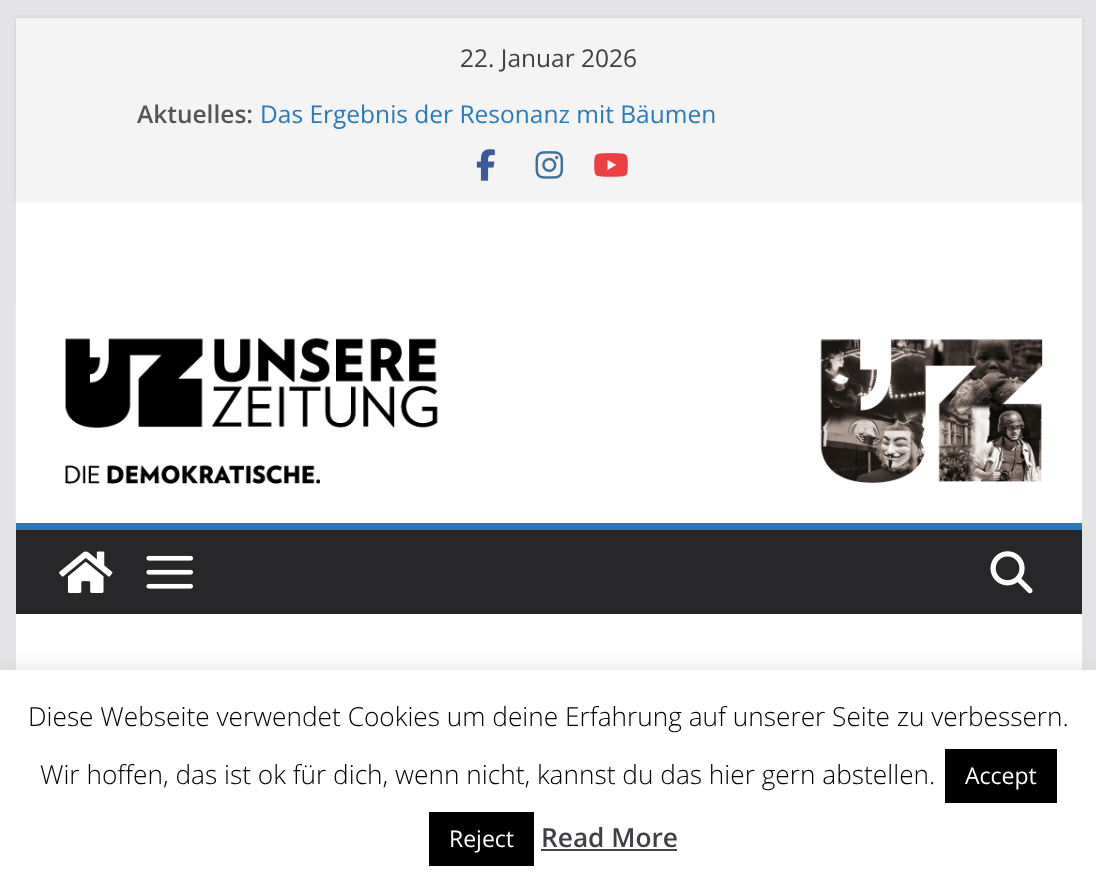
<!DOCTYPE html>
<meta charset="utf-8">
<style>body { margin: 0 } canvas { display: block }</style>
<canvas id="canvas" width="1096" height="887"></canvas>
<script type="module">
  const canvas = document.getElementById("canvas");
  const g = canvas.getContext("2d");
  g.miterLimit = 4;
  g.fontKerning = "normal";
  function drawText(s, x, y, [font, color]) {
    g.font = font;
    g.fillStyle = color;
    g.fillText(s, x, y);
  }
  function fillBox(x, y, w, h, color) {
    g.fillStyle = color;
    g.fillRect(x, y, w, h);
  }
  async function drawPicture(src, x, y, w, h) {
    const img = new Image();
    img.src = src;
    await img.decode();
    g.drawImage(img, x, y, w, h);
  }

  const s1 = ["24.5px Open Sans", "#3F3F46"];
  const s2 = ["600 24.5px Open Sans", "#555555"];
  const s3 = ["24.5px Open Sans", "#257BC1"];
  const s4 = ["300 26.25px Open Sans", "#000000"];
  const s5 = ["23px Open Sans", "#FFFFFF"];
  const s6 = ["600 26.25px Open Sans", "#3F3F46"];

  fillBox(0, 0, 1096, 887, "#E4E4E7");
  fillBox(16, 201, 1066, 322, "#FFFFFF");
  g.fillStyle = "rgba(0, 0, 0, 0.1)";
  g.filter = "blur(2px)";
  g.beginPath();
  g.rect(16, 18, 1066, 183);
  g.fill();
  g.filter = "none";
  fillBox(16, 18, 1066, 183, "#F4F4F5");
  drawText("22. Januar 2026", 460, 67, s1);
  drawText("Aktuelles:", 137, 123, s2);
  drawText("Das Ergebnis der Resonanz mit Bäumen", 260, 123, s3);
  await drawPicture("pic1.png", 476, 149, 19, 32);
  await drawPicture("pic2.png", 535, 151, 29, 28);
  await drawPicture("pic3.png", 594, 153, 34, 24);
  await drawPicture("pic4.png", 15, 303, 1028, 218);
  fillBox(16, 530, 1066, 84, "#27272A");
  fillBox(16, 523, 1066, 7, "#257BC1");
  await drawPicture("pic5.png", 59, 551, 54, 42);
  await drawPicture("pic6.png", 146, 555, 48, 34);
  await drawPicture("pic7.png", 990, 551, 43, 43);
  fillBox(16, 614, 1066, 56, "#FFFFFF");
  g.fillStyle = "rgba(172, 171, 171, 0.3)";
  g.filter = "blur(9px)";
  g.beginPath();
  g.rect(0, 669, 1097, 217);
  g.fill();
  g.filter = "none";
  fillBox(0, 670, 1096, 217, "#FFFFFF");
  drawText("Diese Webseite verwendet Cookies um deine Erfahrung auf unserer Seite zu verbessern.", 28, 726, s4);
  drawText("Wir hoffen, das ist ok für dich, wenn nicht, kannst du das hier gern abstellen.", 40, 784, s4);
  fillBox(945, 749, 112, 54, "#000000");
  drawText("Accept", 965, 784, s5);
  fillBox(429, 812, 105, 54, "#000000");
  drawText("Reject", 449, 847, s5);
  drawText("Read More", 541, 847, s6);
  fillBox(541, 849, 136, 2, "#444444");
</script>
